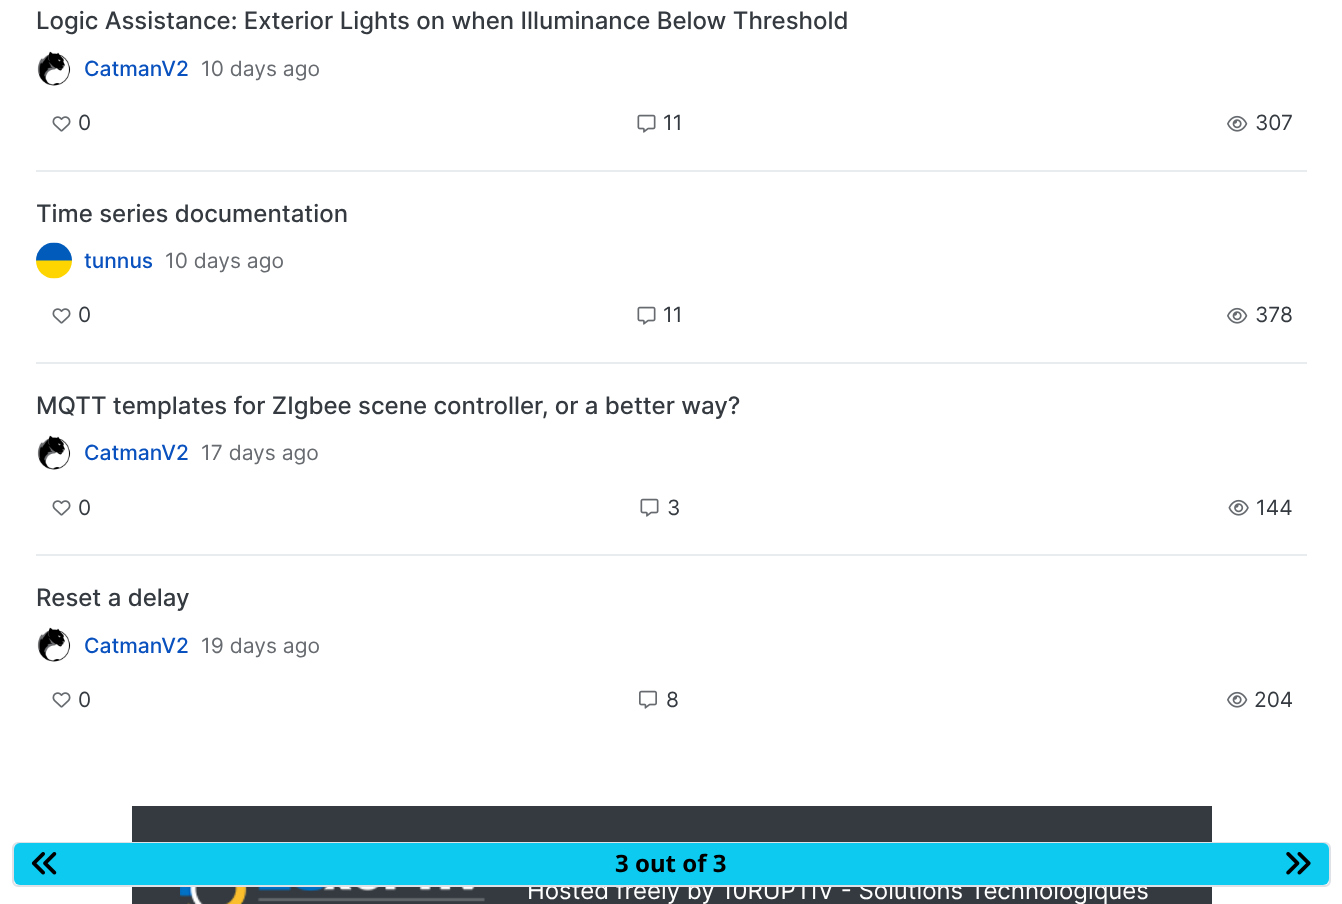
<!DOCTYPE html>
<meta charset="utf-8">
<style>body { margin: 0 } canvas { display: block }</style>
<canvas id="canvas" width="1342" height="904"></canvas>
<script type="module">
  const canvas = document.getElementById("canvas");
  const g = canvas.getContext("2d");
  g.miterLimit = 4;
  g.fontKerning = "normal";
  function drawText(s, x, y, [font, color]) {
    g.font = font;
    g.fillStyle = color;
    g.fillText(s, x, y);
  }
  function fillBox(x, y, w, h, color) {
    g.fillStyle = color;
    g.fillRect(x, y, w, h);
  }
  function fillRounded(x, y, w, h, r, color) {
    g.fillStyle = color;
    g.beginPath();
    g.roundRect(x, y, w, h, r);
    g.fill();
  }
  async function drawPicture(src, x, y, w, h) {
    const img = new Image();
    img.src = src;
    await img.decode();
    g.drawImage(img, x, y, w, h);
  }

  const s1 = ["500 24px Inter", "#343A40"];
  const s2 = ["500 21px Inter", "#0951BE"];
  const s3 = ["21px Inter", "#676B70"];
  const s4 = ["21px Inter", "#343A40"];
  const s5 = ["24px Inter", "#FFFFFF"];
  const s6 = ["bold 24px Noto Sans", "#000000"];

  fillBox(0, 0, 1342, 904, "#FFFFFF");
  drawText("Logic Assistance: Exterior Lights on when Illuminance Below Threshold", 36, 29, s1);
  await drawPicture("pic1.png", 37, 51, 34, 35);
  drawText("CatmanV2", 84, 76, s2);
  drawText("10 days ago", 201, 76, s3);
  await drawPicture("pic2.png", 52, 116, 19, 16);
  drawText("0", 78, 130, s4);
  await drawPicture("pic3.png", 637, 114, 19, 19);
  drawText("11", 663, 130, s4);
  await drawPicture("pic4.png", 1227, 115, 21, 17);
  drawText("307", 1255, 130, s4);
  fillBox(36, 170, 1271, 2, "#E9ECEF");
  drawText("Time series documentation", 36, 222, s1);
  await drawPicture("pic5.png", 36, 242, 36, 37);
  drawText("tunnus", 84, 268, s2);
  drawText("10 days ago", 165, 268, s3);
  await drawPicture("pic2.png", 52, 308, 19, 16);
  drawText("0", 78, 322, s4);
  await drawPicture("pic3.png", 637, 306, 19, 19);
  drawText("11", 663, 322, s4);
  await drawPicture("pic4.png", 1227, 307, 21, 17);
  drawText("378", 1255, 322, s4);
  fillBox(36, 362, 1271, 2, "#E9ECEF");
  drawText("MQTT templates for ZIgbee scene controller, or a better way?", 36, 414, s1);
  await drawPicture("pic1.png", 37, 435, 34, 35);
  drawText("CatmanV2", 84, 460, s2);
  drawText("17 days ago", 201, 460, s3);
  await drawPicture("pic2.png", 52, 500, 19, 16);
  drawText("0", 78, 515, s4);
  await drawPicture("pic3.png", 640, 498, 19, 19);
  drawText("3", 667, 515, s4);
  await drawPicture("pic6.png", 1228, 499, 21, 17);
  drawText("144", 1256, 515, s4);
  fillBox(36, 554, 1271, 2, "#E9ECEF");
  drawText("Reset a delay", 36, 606, s1);
  await drawPicture("pic1.png", 37, 627, 34, 35);
  drawText("CatmanV2", 84, 653, s2);
  drawText("19 days ago", 201, 653, s3);
  await drawPicture("pic2.png", 52, 692, 19, 16);
  drawText("0", 78, 707, s4);
  await drawPicture("pic7.png", 639, 690, 18, 19);
  drawText("8", 666, 707, s4);
  await drawPicture("pic4.png", 1227, 691, 21, 17);
  drawText("204", 1254, 707, s4);
  fillBox(132, 806, 1080, 98, "#343A40");
  await drawPicture("pic8.png", 180, 887, 305, 17);
  drawText("Hosted freely by 10RUPTiV - Solutions Technologiques", 527, 899, s5);
  g.fillStyle = "#F8F9FA";
  g.beginPath();
  g.roundRect(13, 843, 1317, 43, 5);
  g.fill();
  g.strokeStyle = "#DEE2E6";
  g.lineWidth = 2;
  g.stroke();
  fillRounded(14, 843, 1315, 42, 6, "#0DCAF0");
  await drawPicture("pic9.png", 31, 852, 26, 23);
  drawText("3 out of 3", 615, 872, s6);
  await drawPicture("pic10.png", 1286, 852, 25, 23);
</script>
